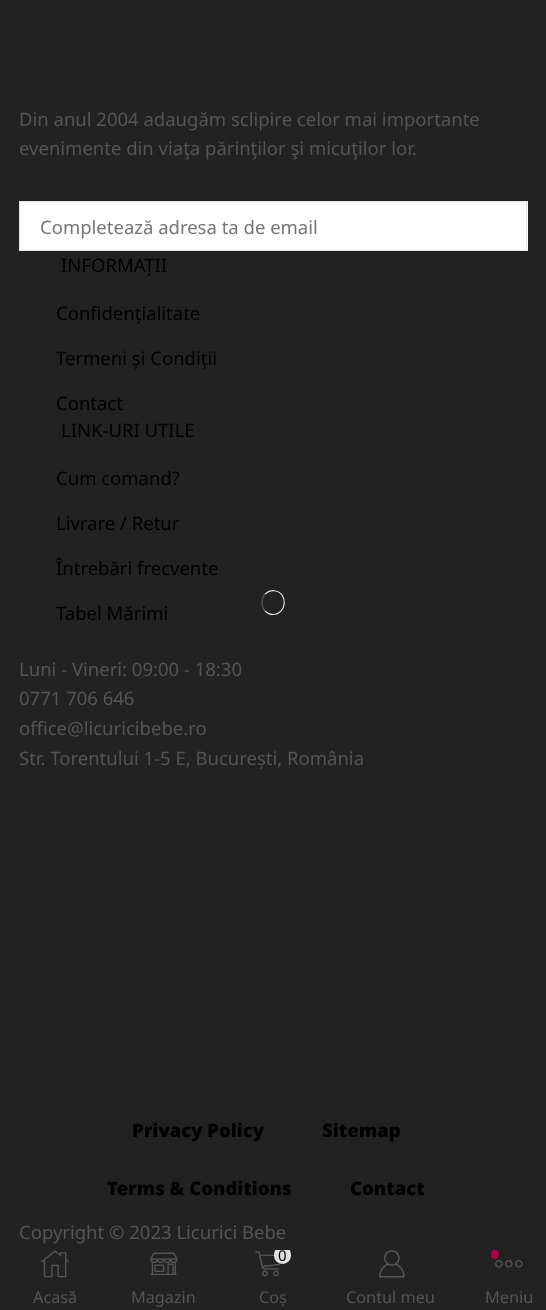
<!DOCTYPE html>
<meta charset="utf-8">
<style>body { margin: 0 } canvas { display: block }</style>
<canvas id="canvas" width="546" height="1310"></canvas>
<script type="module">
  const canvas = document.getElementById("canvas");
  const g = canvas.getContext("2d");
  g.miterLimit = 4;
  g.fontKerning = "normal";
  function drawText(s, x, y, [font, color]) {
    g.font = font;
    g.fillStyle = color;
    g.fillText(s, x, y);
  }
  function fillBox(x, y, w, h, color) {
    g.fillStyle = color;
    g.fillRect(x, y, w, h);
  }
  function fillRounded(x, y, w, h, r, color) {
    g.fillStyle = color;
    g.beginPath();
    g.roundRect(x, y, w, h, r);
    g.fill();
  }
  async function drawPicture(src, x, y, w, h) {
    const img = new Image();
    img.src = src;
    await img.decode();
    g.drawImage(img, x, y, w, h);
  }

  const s1 = ["18.5px Noto Sans", "#555555"];
  const s2 = ["18.5px Noto Sans", "#757575"];
  const s3 = ["18.5px Noto Sans", "#000000"];
  const s4 = ["900 18.5px Noto Sans", "#000000"];
  const s5 = ["16.25px Noto Sans", "#555555"];
  const s6 = ["15px Noto Sans", "#000000"];

  fillBox(0, 0, 546, 1310, "#222222");
  drawText("Din anul 2004 adaugăm sclipire celor mai importante", 19, 126, s1);
  drawText("evenimente din viaţa părinţilor şi micuţilor lor.", 19, 155, s1);
  fillBox(20, 202, 458, 48, "#FFFFFF");
  g.strokeStyle = "#E1E1E1";
  g.strokeRect(19.5, 201.5, 508, 49);
  drawText("Completează adresa ta de email", 40, 234, s2);
  fillBox(478, 202, 50, 48, "#FFFFFF");
  fillBox(526, 201, 1, 50, "#E1E1E1");
  g.beginPath();
  g.moveTo(265, 594);
  g.bezierCurveTo(268, 591.5, 271.5, 590, 275.5, 591);
  g.bezierCurveTo(288.5, 593.5, 286.5, 614.5, 273, 614.5);
  g.bezierCurveTo(270, 614.5, 267, 613, 265, 611);
  g.lineWidth = 1.2;
  g.stroke();
  g.beginPath();
  g.moveTo(265, 611);
  g.bezierCurveTo(261, 606.5, 261, 598.5, 265, 594);
  g.strokeStyle = "#555555";
  g.stroke();
  drawText("INFORMAȚII", 61, 272, s3);
  drawText("Confidențialitate", 56, 320, s3);
  drawText("Termeni și Condiții", 56, 365, s3);
  drawText("Contact", 56, 410, s3);
  drawText("LINK-URI UTILE", 61, 437, s3);
  drawText("Cum comand?", 56, 485, s3);
  drawText("Livrare / Retur", 56, 530, s3);
  drawText("Întrebări frecvente", 56, 575, s3);
  drawText("Tabel Mărimi", 56, 620, s3);
  drawText("Luni - Vineri: 09:00 - 18:30", 19, 676, s1);
  drawText("0771 706 646", 19, 705, s1);
  drawText("office@licuricibebe.ro", 19, 735, s1);
  drawText("Str. Torentului 1-5 E, București, România", 19, 765, s1);
  drawText("Privacy Policy", 132, 1137, s4);
  drawText("Sitemap", 322, 1137, s4);
  drawText("Terms & Conditions", 107, 1195, s4);
  drawText("Contact", 350, 1195, s4);
  drawText("Copyright © 2023 Licurici Bebe", 19, 1239, s1);
  await drawPicture("pic1.png", 41, 1250, 28, 28);
  drawText("Acasă", 33, 1303, s5);
  await drawPicture("pic2.png", 150, 1252, 28, 23);
  drawText("Magazin", 131, 1303, s5);
  await drawPicture("pic3.png", 255, 1251, 26, 26);
  g.save();
  g.beginPath();
  g.rect(0, 1250, 546, 60);
  g.clip();
  fillRounded(274, 1246, 17, 18, 8.5, "#E1E1E1");
  g.restore();
  drawText("0", 278, 1261, s6);
  drawText("Coș", 259, 1303, s5);
  await drawPicture("pic4.png", 379, 1250, 26, 28);
  drawText("Contul meu", 346, 1303, s5);
  fillRounded(491, 1250, 8, 9, 4, "#A4004F");
  await drawPicture("pic5.png", 495, 1260, 28, 8);
  drawText("Meniu", 485, 1303, s5);
</script>
